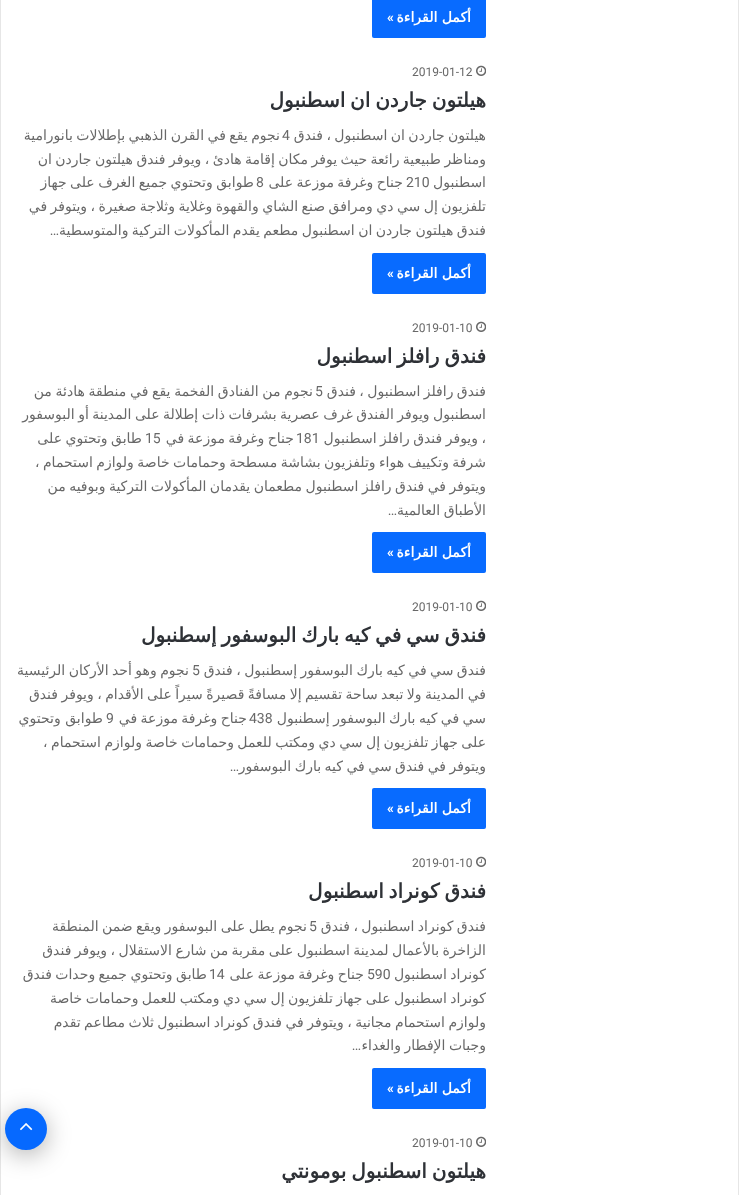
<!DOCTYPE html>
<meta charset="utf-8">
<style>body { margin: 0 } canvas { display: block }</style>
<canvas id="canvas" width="739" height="1195"></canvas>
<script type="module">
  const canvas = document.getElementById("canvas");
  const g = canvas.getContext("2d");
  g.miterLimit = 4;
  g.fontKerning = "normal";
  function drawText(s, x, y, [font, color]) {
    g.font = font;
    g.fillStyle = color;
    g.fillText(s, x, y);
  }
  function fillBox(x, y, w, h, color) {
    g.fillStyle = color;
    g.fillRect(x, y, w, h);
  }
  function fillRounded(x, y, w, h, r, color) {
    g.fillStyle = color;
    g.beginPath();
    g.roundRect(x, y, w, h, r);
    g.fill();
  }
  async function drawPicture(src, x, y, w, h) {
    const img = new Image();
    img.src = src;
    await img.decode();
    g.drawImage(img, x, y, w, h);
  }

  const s1 = ["bold 14px DejaVu Sans", "#FFFFFF"];
  const s2 = ["600 14px Roboto", "#FFFFFF"];
  const s3 = ["12px Roboto", "#686868"];
  const s4 = ["bold 20px DejaVu Sans", "#2E3136"];
  const s5 = ["14px DejaVu Sans", "#686868"];
  const s6 = ["14px Roboto", "#686868"];

  fillBox(0, 0, 739, 1195, "#FFFFFF");
  g.strokeStyle = "#E6E6E6";
  g.strokeRect(0.5, -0.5, 738, 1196);
  fillRounded(372, -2, 114, 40, 2, "#086BFF");
  g.direction = "rtl";
  drawText("أكمل القراءة", 471, 22, s1);
  drawText("»", 394, 22, s2);
  await drawPicture("pic1.png", 476, 65, 10, 11);
  g.direction = "ltr";
  drawText("2019-01-12", 412, 76, s3);
  g.wordSpacing = "-1.5px";
  g.direction = "rtl";
  drawText("هيلتون جاردن ان اسطنبول", 486, 107, s4);
  g.wordSpacing = "-1px";
  drawText("هيلتون جاردن ان اسطنبول ، فندق", 486, 140, s5);
  g.wordSpacing = "0px";
  g.direction = "ltr";
  drawText("4", 282, 140, s6);
  g.wordSpacing = "-1px";
  g.direction = "rtl";
  drawText("نجوم يقع في القرن الذهبي بإطلالات بانورامية", 280, 140, s5);
  drawText("ومناظر طبيعية رائعة حيث يوفر مكان إقامة هادئ ، ويوفر فندق هيلتون جاردن ان", 486, 164, s5);
  g.wordSpacing = "0px";
  drawText("اسطنبول", 486, 187, s5);
  g.direction = "ltr";
  drawText("210", 406, 187, s6);
  g.wordSpacing = "-1px";
  g.direction = "rtl";
  drawText("جناح وغرفة موزعة على", 403, 187, s5);
  g.wordSpacing = "0px";
  g.direction = "ltr";
  drawText("8", 256, 187, s6);
  g.wordSpacing = "-1px";
  g.direction = "rtl";
  drawText("طوابق وتحتوي جميع الغرف على جهاز", 254, 187, s5);
  drawText("تلفزيون إل سي دي ومرافق صنع الشاي والقهوة وغلاية وثلاجة صغيرة ، ويتوفر في", 486, 211, s5);
  drawText("فندق هيلتون جاردن ان اسطنبول مطعم يقدم المأكولات التركية والمتوسطية", 486, 235, s5);
  g.wordSpacing = "0px";
  drawText("…", 59, 235, s6);
  fillRounded(372, 253, 114, 41, 2, "#086BFF");
  drawText("أكمل القراءة", 471, 278, s1);
  drawText("»", 394, 278, s2);
  await drawPicture("pic1.png", 476, 321, 10, 11);
  g.direction = "ltr";
  drawText("2019-01-10", 412, 332, s3);
  g.wordSpacing = "-1.5px";
  g.direction = "rtl";
  drawText("فندق رافلز اسطنبول", 486, 363, s4);
  g.wordSpacing = "-1px";
  drawText("فندق رافلز اسطنبول ، فندق", 486, 396, s5);
  g.wordSpacing = "0px";
  g.direction = "ltr";
  drawText("5", 315, 396, s6);
  g.wordSpacing = "-0.75px";
  g.direction = "rtl";
  drawText("نجوم من الفنادق الفخمة يقع في منطقة هادئة من", 313, 396, s5);
  g.wordSpacing = "-1px";
  drawText("اسطنبول ويوفر الفندق غرف عصرية بشرفات ذات إطلالة على المدينة أو البوسفور", 486, 419, s5);
  drawText("، ويوفر فندق رافلز اسطنبول", 486, 443, s5);
  g.wordSpacing = "0px";
  g.direction = "ltr";
  drawText("181", 296, 443, s6);
  g.wordSpacing = "-1px";
  g.direction = "rtl";
  drawText("جناح وغرفة موزعة في", 294, 443, s5);
  g.wordSpacing = "0px";
  g.direction = "ltr";
  drawText("15", 145, 443, s6);
  g.wordSpacing = "-1px";
  g.direction = "rtl";
  drawText("طابق وتحتوي على", 142, 443, s5);
  drawText("شرفة وتكييف هواء وتلفزيون بشاشة مسطحة وحمامات خاصة ولوازم استحمام ،", 486, 467, s5);
  drawText("ويتوفر في فندق رافلز اسطنبول مطعمان يقدمان المأكولات التركية وبوفيه من", 486, 491, s5);
  drawText("الأطباق العالمية", 486, 515, s5);
  g.wordSpacing = "0px";
  drawText("…", 397, 515, s6);
  fillRounded(372, 532, 114, 41, 2, "#086BFF");
  drawText("أكمل القراءة", 471, 557, s1);
  drawText("»", 394, 557, s2);
  await drawPicture("pic1.png", 476, 600, 10, 11);
  g.direction = "ltr";
  drawText("2019-01-10", 412, 611, s3);
  g.wordSpacing = "-1.5px";
  g.direction = "rtl";
  drawText("فندق سي في كيه بارك البوسفور إسطنبول", 486, 642, s4);
  g.wordSpacing = "-1px";
  drawText("فندق سي في كيه بارك البوسفور إسطنبول ، فندق", 486, 675, s5);
  g.wordSpacing = "0px";
  g.direction = "ltr";
  drawText("5", 192, 675, s6);
  g.wordSpacing = "-1px";
  g.direction = "rtl";
  drawText("نجوم وهو أحد الأركان الرئيسية", 189, 675, s5);
  drawText("في المدينة ولا تبعد ساحة تقسيم إلا مسافةً قصيرةً سيراً على الأقدام ، ويوفر فندق", 486, 699, s5);
  drawText("سي في كيه بارك البوسفور إسطنبول", 486, 723, s5);
  g.wordSpacing = "0px";
  g.direction = "ltr";
  drawText("438", 249, 723, s6);
  g.wordSpacing = "-1px";
  g.direction = "rtl";
  drawText("جناح وغرفة موزعة في", 247, 723, s5);
  g.wordSpacing = "0px";
  g.direction = "ltr";
  drawText("9", 106, 723, s6);
  g.direction = "rtl";
  drawText("طوابق وتحتوي", 103, 723, s5);
  g.wordSpacing = "-1px";
  drawText("على جهاز تلفزيون إل سي دي ومكتب للعمل وحمامات خاصة ولوازم استحمام ،", 486, 747, s5);
  g.wordSpacing = "0px";
  drawText("…", 239, 771, s6);
  g.wordSpacing = "-1px";
  drawText("ويتوفر في فندق سي في كيه بارك البوسفور", 486, 771, s5);
  fillRounded(372, 788, 114, 41, 2, "#086BFF");
  g.wordSpacing = "0px";
  drawText("أكمل القراءة", 471, 813, s1);
  drawText("»", 394, 813, s2);
  await drawPicture("pic1.png", 476, 856, 10, 11);
  g.direction = "ltr";
  drawText("2019-01-10", 412, 867, s3);
  g.wordSpacing = "-1.5px";
  g.direction = "rtl";
  drawText("فندق كونراد اسطنبول", 486, 898, s4);
  g.wordSpacing = "-1px";
  drawText("فندق كونراد اسطنبول ، فندق", 486, 931, s5);
  g.wordSpacing = "0px";
  g.direction = "ltr";
  drawText("5", 309, 931, s6);
  g.wordSpacing = "-1px";
  g.direction = "rtl";
  drawText("نجوم يطل على البوسفور ويقع ضمن المنطقة", 307, 931, s5);
  drawText("الزاخرة بالأعمال لمدينة اسطنبول على مقربة من شارع الاستقلال ، ويوفر فندق", 486, 955, s5);
  drawText("كونراد اسطنبول", 486, 979, s5);
  g.wordSpacing = "0px";
  g.direction = "ltr";
  drawText("590", 367, 979, s6);
  g.wordSpacing = "-1px";
  g.direction = "rtl";
  drawText("جناح وغرفة موزعة على", 364, 979, s5);
  g.wordSpacing = "0px";
  g.direction = "ltr";
  drawText("14", 209, 979, s6);
  g.wordSpacing = "-1px";
  g.direction = "rtl";
  drawText("طابق وتحتوي جميع وحدات فندق", 207, 979, s5);
  drawText("كونراد اسطنبول على جهاز تلفزيون إل سي دي ومكتب للعمل وحمامات خاصة", 486, 1003, s5);
  drawText("ولوازم استحمام مجانية ، ويتوفر في فندق كونراد اسطنبول ثلاث مطاعم تقدم", 486, 1027, s5);
  drawText("وجبات الإفطار والغداء", 486, 1050, s5);
  g.wordSpacing = "0px";
  drawText("…", 361, 1050, s6);
  fillRounded(372, 1068, 114, 41, 2, "#086BFF");
  drawText("أكمل القراءة", 471, 1093, s1);
  drawText("»", 394, 1093, s2);
  await drawPicture("pic1.png", 476, 1136, 10, 11);
  g.direction = "ltr";
  drawText("2019-01-10", 412, 1147, s3);
  g.wordSpacing = "-1.5px";
  g.direction = "rtl";
  drawText("هيلتون اسطنبول بومونتي", 486, 1178, s4);
  g.fillStyle = "rgba(0, 0, 0, 0.3)";
  g.filter = "blur(12.5px)";
  g.beginPath();
  g.roundRect(5, 1113, 42, 42, 21);
  g.fill();
  g.filter = "none";
  g.fillStyle = "#0669FF";
  g.beginPath();
  g.arc(26, 1129, 21, 0, Math.PI * 2);
  g.fill();
  await drawPicture("pic2.png", 20, 1123, 13, 8);
</script>
